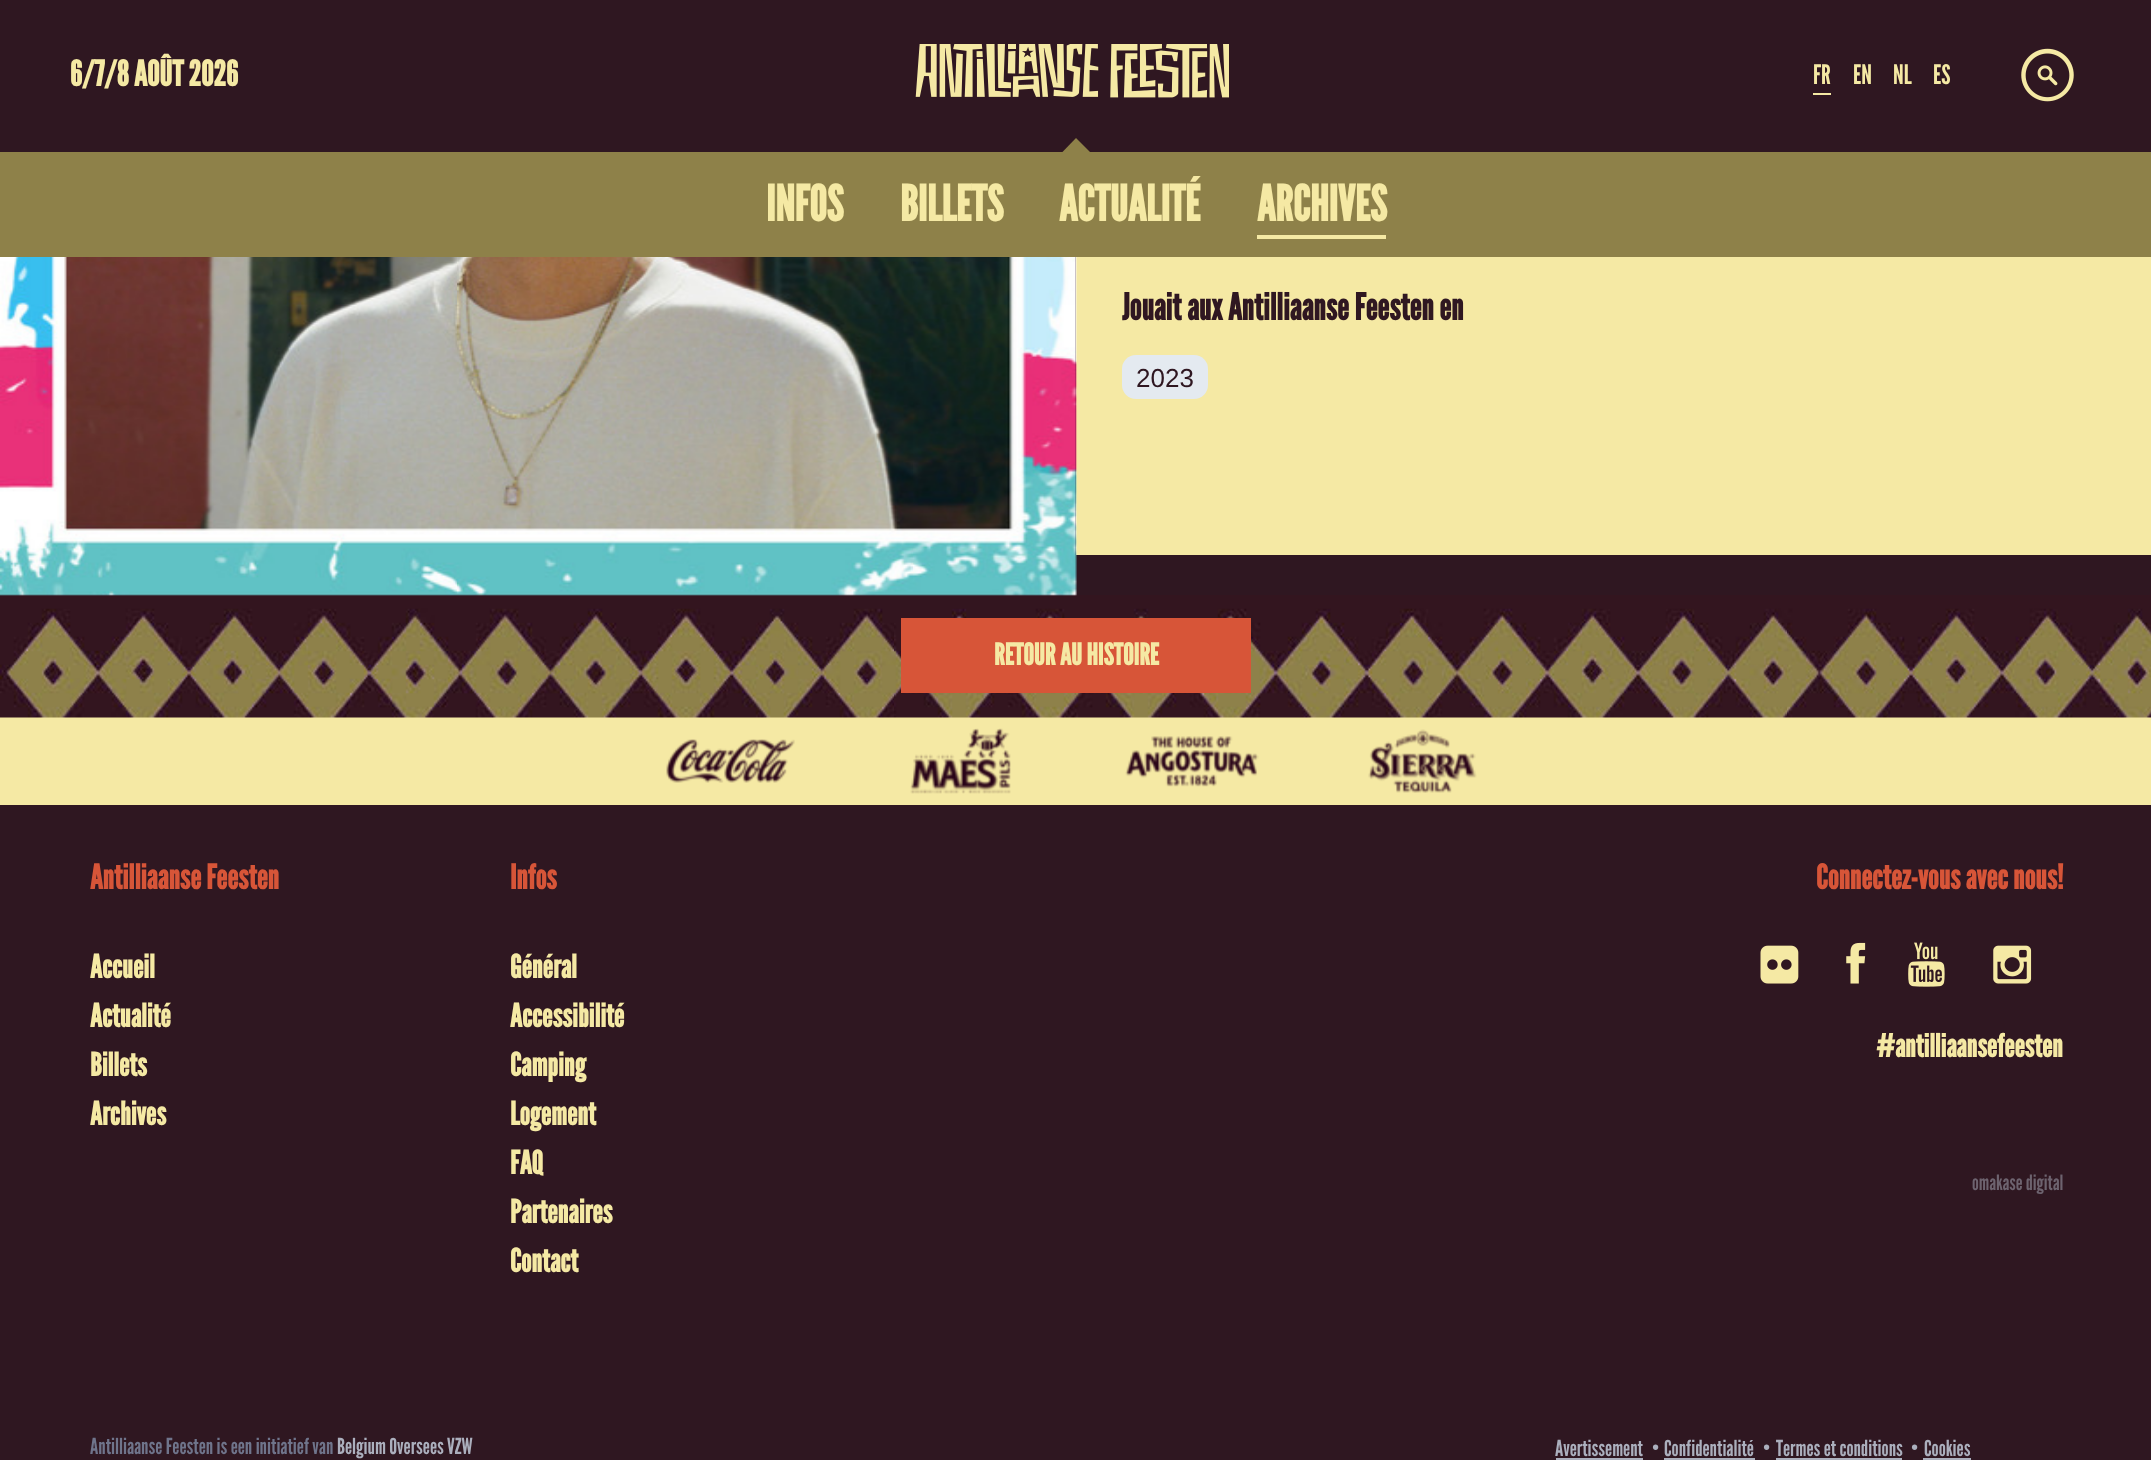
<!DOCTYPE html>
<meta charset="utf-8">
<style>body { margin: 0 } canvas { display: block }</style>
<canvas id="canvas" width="2151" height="1460"></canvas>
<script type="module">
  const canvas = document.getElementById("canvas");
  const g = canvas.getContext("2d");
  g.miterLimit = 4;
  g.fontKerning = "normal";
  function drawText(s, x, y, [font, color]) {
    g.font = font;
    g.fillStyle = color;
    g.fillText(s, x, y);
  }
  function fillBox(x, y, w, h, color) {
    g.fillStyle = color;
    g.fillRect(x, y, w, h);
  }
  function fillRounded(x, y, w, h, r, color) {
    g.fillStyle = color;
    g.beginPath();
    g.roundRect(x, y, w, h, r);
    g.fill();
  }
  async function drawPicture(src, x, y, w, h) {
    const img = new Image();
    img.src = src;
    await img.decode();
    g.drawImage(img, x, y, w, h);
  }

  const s1 = ["bold 35px League Gothic", "#F5E9A4"];
  const s2 = ["27px League Gothic", "#F5E9A4"];
  const s3 = ["bold 49px League Gothic", "#F5E9A4"];
  const s4 = ["bold 36.75px League Gothic", "#2F1721"];
  const s5 = ["26px Liberation Sans", "#2F1721"];
  const s6 = ["bold 29.75px League Gothic", "#F5E9A4"];
  const s7 = ["bold 33.75px League Gothic", "#D75538"];
  const s8 = ["bold 32px League Gothic", "#F5E9A4"];
  const s9 = ["bold 31.5px League Gothic", "#F5E9A4"];
  const s10 = ["21px League Gothic", "#6D636F"];
  const s11 = ["22px League Gothic", "#6F748B"];
  const s12 = ["22px League Gothic", "#ABAFBD"];

  fillBox(0, 0, 2151, 1460, "#2F1721");
  drawText("6/7/8 AOÛT 2026", 70, 86, s1);
  await drawPicture("pic1.png", 915, 44, 314, 54);
  drawText("FR", 1813, 84, s2);
  fillBox(1813, 93, 18, 2, "#F5E9A4");
  drawText("EN", 1853, 84, s2);
  drawText("NL", 1893, 84, s2);
  drawText("ES", 1933, 84, s2);
  await drawPicture("pic2.png", 2021, 48, 53, 54);
  fillBox(0, 152, 2151, 105, "#8E8149");
  g.beginPath();
  g.moveTo(1092, 154);
  g.lineTo(1060.5, 154);
  g.lineTo(1076, 138);
  g.closePath();
  g.fill();
  drawText("INFOS", 766, 221, s3);
  drawText("BILLETS", 900, 221, s3);
  drawText("ACTUALITÉ", 1059, 221, s3);
  drawText("ARCHIVES", 1257, 221, s3);
  fillBox(1257, 235, 129, 4, "#F5E9A4");
  fillBox(1076, 257, 1075, 298, "#F5E9A4");
  fillBox(0, 717, 2151, 88, "#F5E9A4");
  await drawPicture("pic4.png", 0, 595, 2151, 123);
  await drawPicture("pic3.png", 0, 257, 1077, 339);
  drawText("Jouait aux Antilliaanse Feesten en", 1122, 320, s4);
  fillRounded(1122, 355, 86, 44, 14, "#E4EAF0");
  drawText("2023", 1136, 387, s5);
  fillBox(901, 618, 350, 75, "#D75538");
  drawText("RETOUR AU HISTOIRE", 994, 665, s6);
  await drawPicture("pic5.png", 666, 739, 129, 44);
  await drawPicture("pic6.png", 910, 728, 101, 66);
  await drawPicture("pic7.png", 1125, 736, 134, 51);
  await drawPicture("pic8.png", 1368, 729, 109, 64);
  drawText("Antilliaanse Feesten", 90, 889, s7);
  drawText("Accueil", 90, 978, s8);
  drawText("Actualité", 90, 1027, s8);
  drawText("Billets", 90, 1076, s8);
  drawText("Archives", 90, 1125, s8);
  drawText("Infos", 510, 889, s7);
  drawText("Général", 510, 978, s8);
  drawText("Accessibilité", 510, 1027, s8);
  drawText("Camping", 510, 1076, s8);
  drawText("Logement", 510, 1125, s8);
  drawText("FAQ", 510, 1174, s8);
  drawText("Partenaires", 510, 1223, s8);
  drawText("Contact", 510, 1272, s8);
  drawText("Connectez-vous avec nous!", 1816, 889, s7);
  await drawPicture("pic9.png", 1760, 945, 39, 39);
  await drawPicture("pic10.png", 1846, 942, 20, 42);
  await drawPicture("pic11.png", 1908, 942, 37, 45);
  await drawPicture("pic12.png", 1993, 945, 39, 39);
  drawText("#antilliaansefeesten", 1876, 1057, s9);
  drawText("omakase digital", 1972, 1190, s10);
  drawText("Antilliaanse Feesten is een initiatief van", 90, 1454, s11);
  drawText("Belgium Oversees VZW", 337, 1454, s12);
  drawText("Avertissement", 1555, 1456, s12);
  fillBox(1556, 1458, 87, 2, "#ABAFBD");
  drawText("•", 1652, 1456, s12);
  drawText("Confidentialité", 1664, 1456, s12);
  fillBox(1664, 1458, 91, 2, "#ABAFBD");
  drawText("•", 1763, 1456, s12);
  drawText("Termes et conditions", 1776, 1456, s12);
  fillBox(1776, 1458, 126, 2, "#ABAFBD");
  drawText("•", 1911, 1456, s12);
  drawText("Cookies", 1924, 1456, s12);
  fillBox(1923, 1458, 48, 2, "#ABAFBD");
</script>
